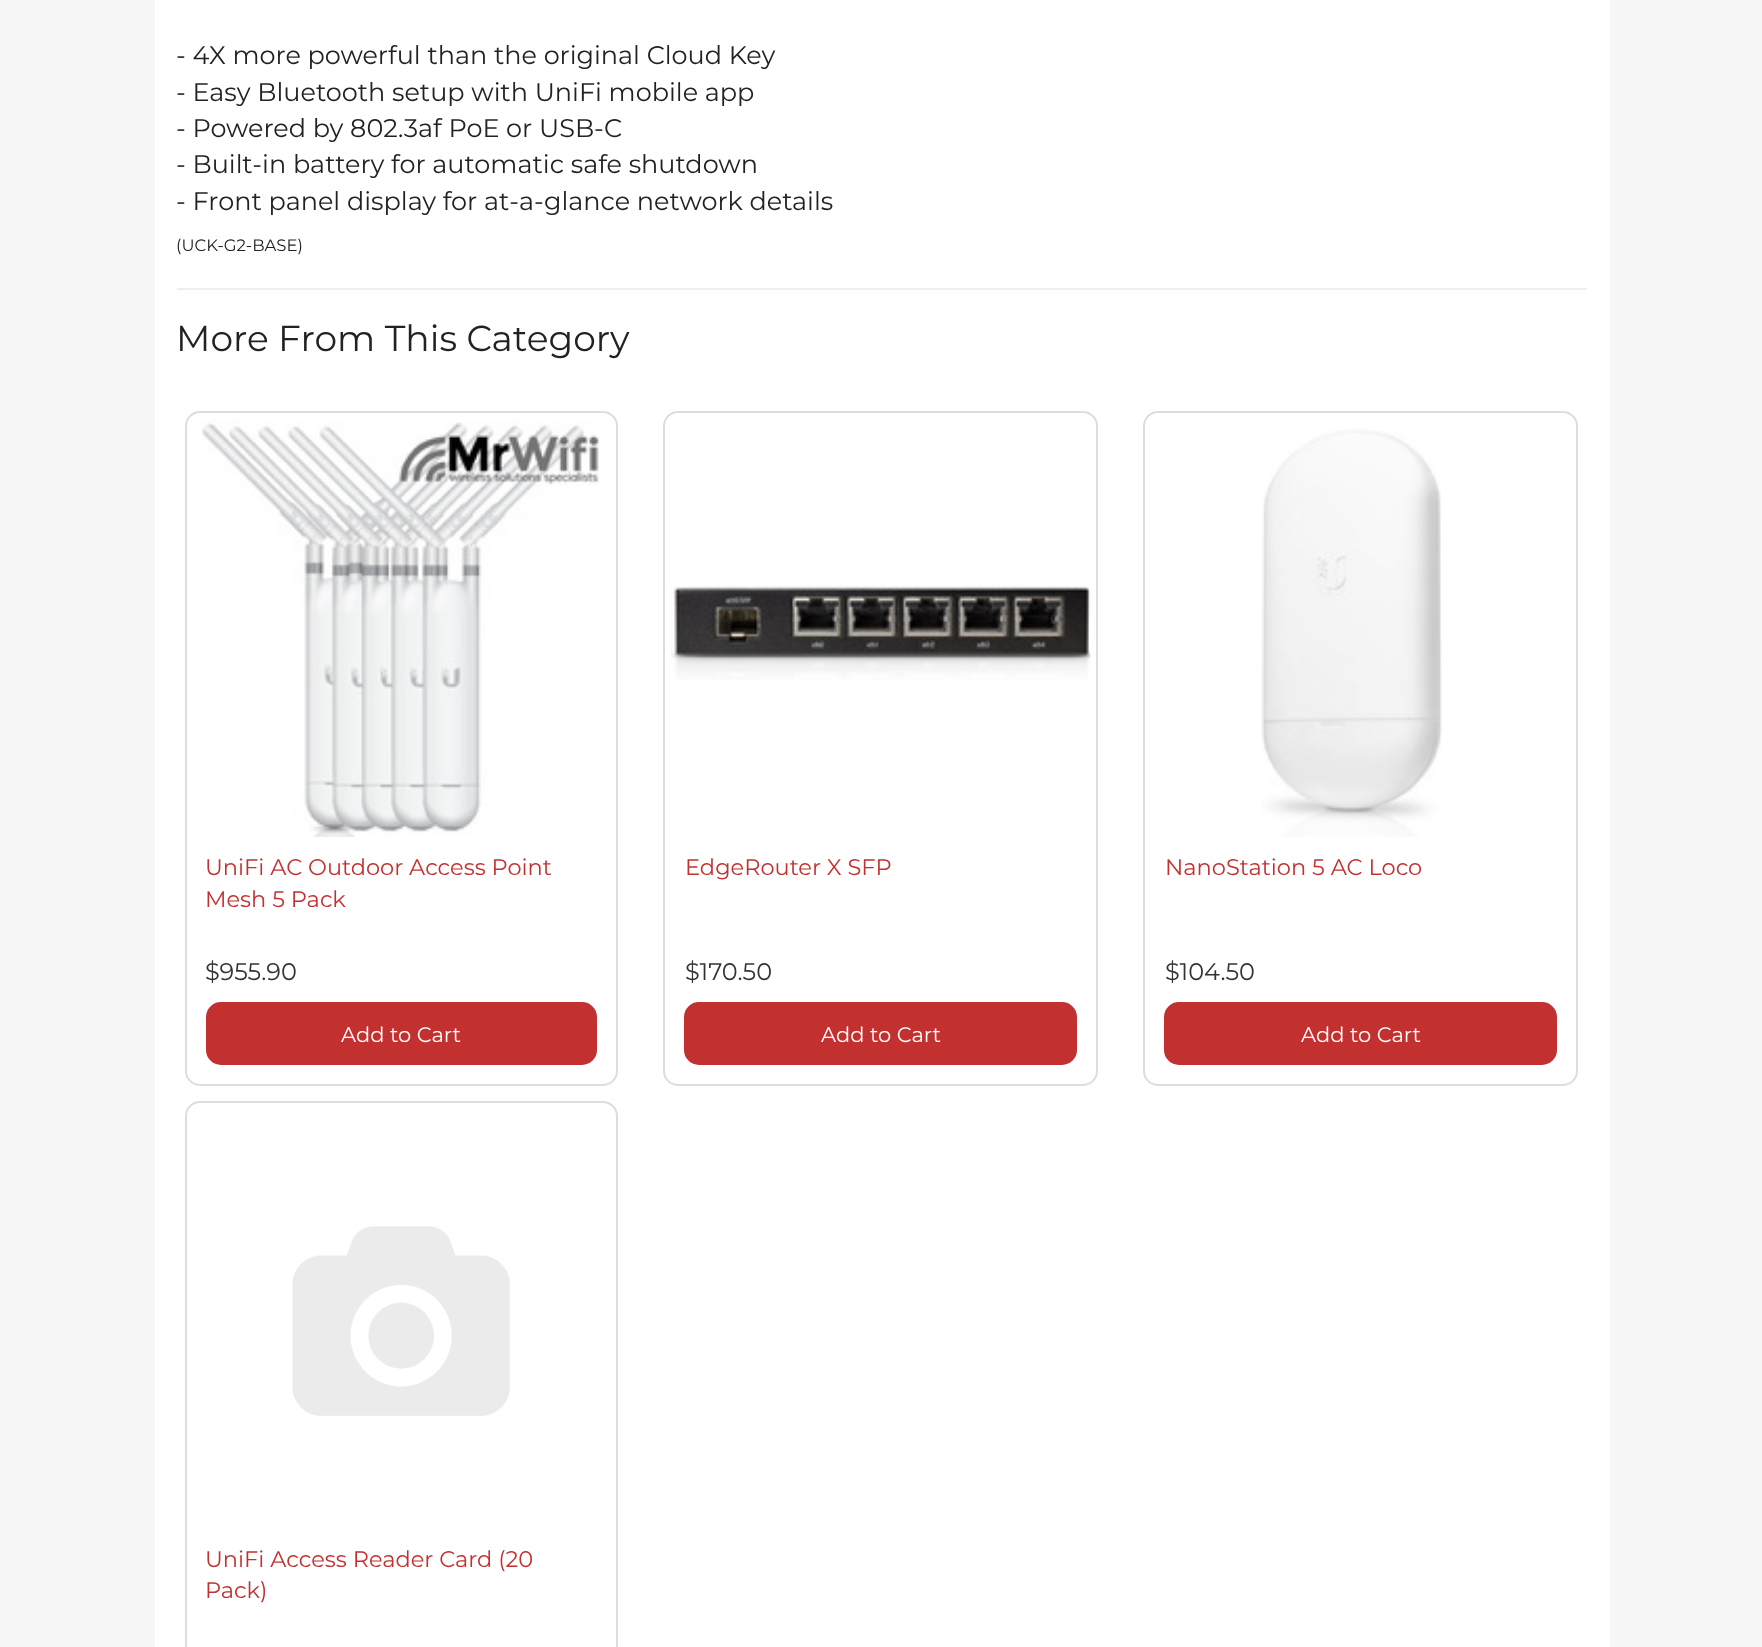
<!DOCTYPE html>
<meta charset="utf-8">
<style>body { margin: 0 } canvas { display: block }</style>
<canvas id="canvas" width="1762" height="1647"></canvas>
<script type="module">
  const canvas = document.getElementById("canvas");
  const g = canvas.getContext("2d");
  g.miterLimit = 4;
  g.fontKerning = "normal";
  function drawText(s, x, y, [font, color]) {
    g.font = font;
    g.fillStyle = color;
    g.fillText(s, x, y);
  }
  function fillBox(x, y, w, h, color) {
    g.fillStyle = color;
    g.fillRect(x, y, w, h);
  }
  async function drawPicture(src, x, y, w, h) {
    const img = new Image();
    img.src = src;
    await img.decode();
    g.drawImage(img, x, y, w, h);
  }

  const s1 = ["25.5px Montserrat", "#222222"];
  const s2 = ["16.5px Montserrat", "#222222"];
  const s3 = ["36px Montserrat", "#222222"];
  const s4 = ["22.5px Montserrat", "#C33030"];
  const s5 = ["24px Montserrat", "#333333"];
  const s6 = ["21px Montserrat", "#FFFFFF"];

  fillBox(0, 0, 1762, 1647, "#F7F7F7");
  fillBox(155, 0, 1455, 1647, "#FFFFFF");
  drawText("- 4X more powerful than the original Cloud Key", 176, 64, s1);
  drawText("- Easy Bluetooth setup with UniFi mobile app", 176, 101, s1);
  drawText("- Powered by 802.3af PoE or USB-C", 176, 137, s1);
  drawText("- Built-in battery for automatic safe shutdown", 176, 173, s1);
  drawText("- Front panel display for at-a-glance network details", 176, 210, s1);
  drawText("(UCK-G2-BASE)", 176, 251, s2);
  fillBox(177, 288, 1410, 2, "#EEEEEE");
  drawText("More From This Category", 176, 351, s3);
  g.beginPath();
  g.roundRect(186, 412, 431, 673, 14);
  g.strokeStyle = "#DDDDDD";
  g.lineWidth = 2;
  g.stroke();
  await drawPicture("pic1.png", 202, 419, 398, 418);
  drawText("UniFi AC Outdoor Access Point", 205, 875, s4);
  drawText("Mesh 5 Pack", 205, 907, s4);
  drawText("$955.90", 205, 980, s5);
  g.fillStyle = "#C33030";
  g.beginPath();
  g.roundRect(207, 1003, 389, 61, 14);
  g.fill();
  g.strokeStyle = "#C33030";
  g.stroke();
  drawText("Add to Cart", 341, 1042, s6);
  g.beginPath();
  g.roundRect(664, 412, 433, 673, 14);
  g.strokeStyle = "#DDDDDD";
  g.stroke();
  await drawPicture("pic2.png", 671, 585, 420, 95);
  drawText("EdgeRouter X SFP", 685, 875, s4);
  drawText("$170.50", 685, 980, s5);
  g.fillStyle = "#C33030";
  g.beginPath();
  g.roundRect(685, 1003, 391, 61, 14);
  g.fill();
  g.strokeStyle = "#C33030";
  g.stroke();
  drawText("Add to Cart", 821, 1042, s6);
  g.beginPath();
  g.roundRect(1144, 412, 433, 673, 14);
  g.strokeStyle = "#DDDDDD";
  g.stroke();
  await drawPicture("pic3.png", 1261, 429, 182, 408);
  drawText("NanoStation 5 AC Loco", 1165, 875, s4);
  drawText("$104.50", 1165, 980, s5);
  g.fillStyle = "#C33030";
  g.beginPath();
  g.roundRect(1165, 1003, 391, 61, 14);
  g.fill();
  g.strokeStyle = "#C33030";
  g.stroke();
  drawText("Add to Cart", 1301, 1042, s6);
  g.beginPath();
  g.roundRect(186, 1102, 431, 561, 14);
  g.strokeStyle = "#DDDDDD";
  g.stroke();
  await drawPicture("pic4.png", 292, 1226, 218, 190);
  drawText("UniFi Access Reader Card (20", 205, 1567, s4);
  drawText("Pack)", 205, 1598, s4);
</script>
